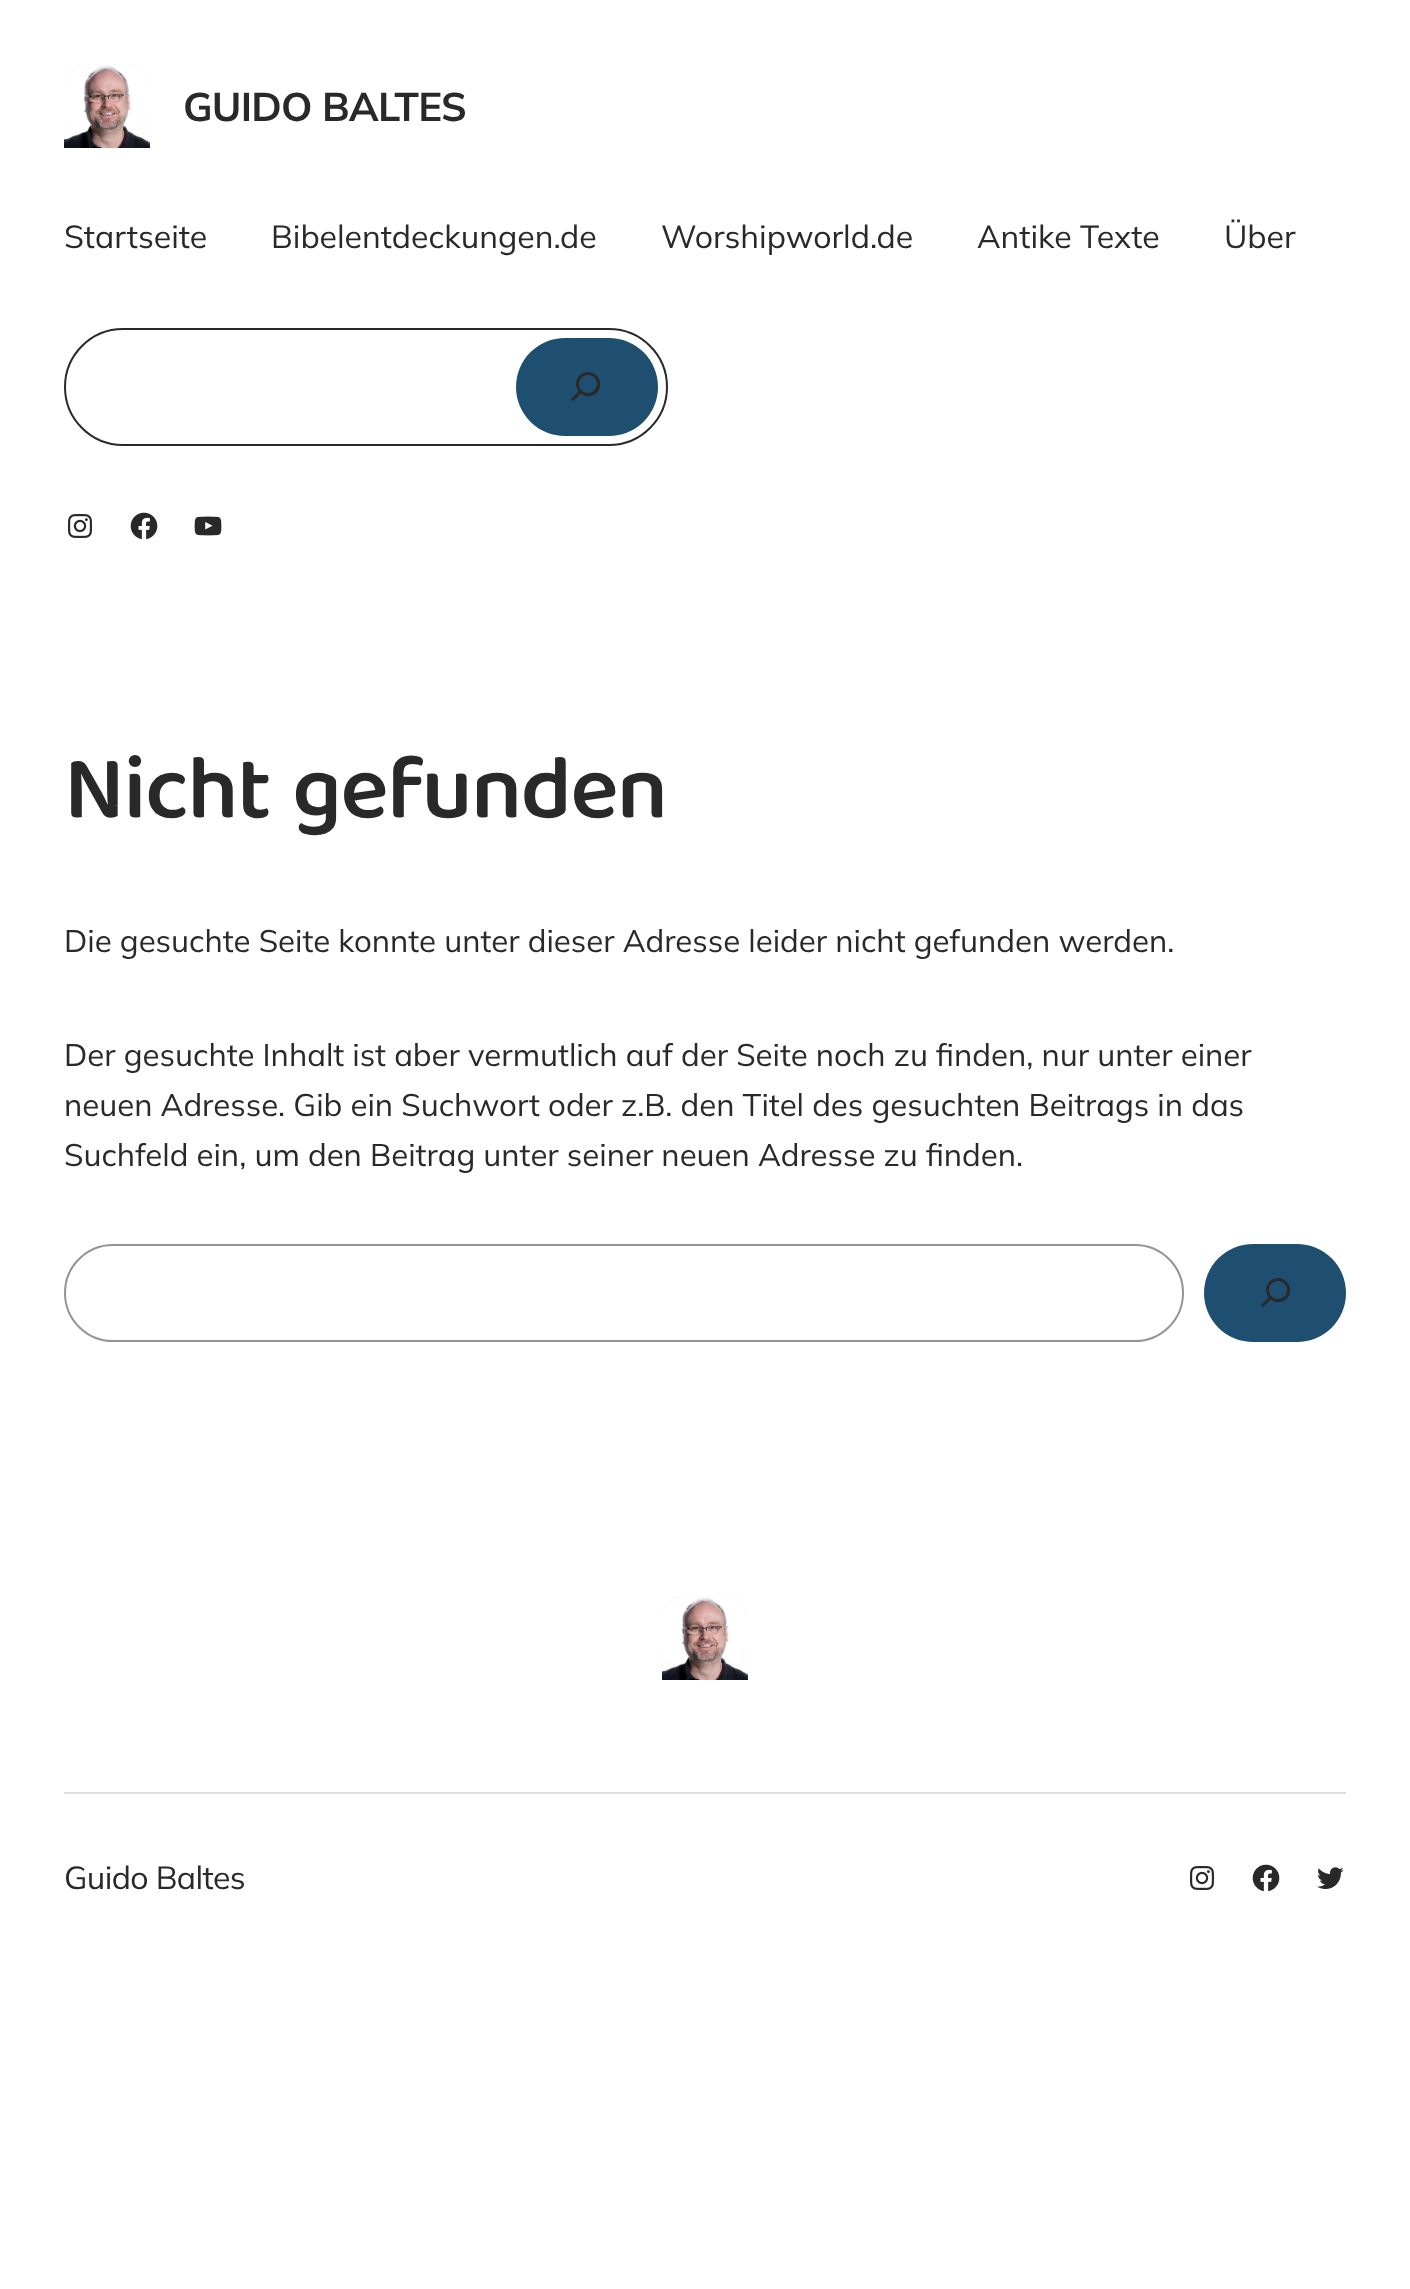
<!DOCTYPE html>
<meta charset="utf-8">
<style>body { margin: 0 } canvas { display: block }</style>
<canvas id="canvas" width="1410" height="2289"></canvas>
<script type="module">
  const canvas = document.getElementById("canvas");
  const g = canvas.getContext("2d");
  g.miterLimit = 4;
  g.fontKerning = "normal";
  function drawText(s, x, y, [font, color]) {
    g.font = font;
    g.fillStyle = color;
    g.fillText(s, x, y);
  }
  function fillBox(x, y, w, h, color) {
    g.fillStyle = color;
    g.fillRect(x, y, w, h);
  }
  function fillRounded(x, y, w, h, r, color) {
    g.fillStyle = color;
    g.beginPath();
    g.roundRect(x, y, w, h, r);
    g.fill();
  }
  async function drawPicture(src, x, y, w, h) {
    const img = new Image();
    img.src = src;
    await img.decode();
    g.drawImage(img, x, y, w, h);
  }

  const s1 = ["bold 40px Mulish", "#292929"];
  const s2 = ["32px Mulish", "#292929"];
  const s3 = ["600 91.25px 'Baloo Tamma 2'", "#292929"];
  const s4 = ["31.2px Mulish", "#292929"];

  fillBox(0, 0, 1410, 2289, "#FFFFFF");
  await drawPicture("pic1.png", 64, 64, 86, 84);
  g.letterSpacing = "-0.75px";
  drawText("GUIDO BALTES", 183, 121, s1);
  g.letterSpacing = "0px";
  drawText("Startseite", 64, 248, s2);
  drawText("Bibelentdeckungen.de", 271, 248, s2);
  drawText("Worshipworld.de", 661, 248, s2);
  drawText("Antike Texte", 977, 248, s2);
  drawText("Über", 1224, 248, s2);
  g.beginPath();
  g.roundRect(65, 329, 602, 116, 58);
  g.strokeStyle = "#292929";
  g.lineWidth = 2;
  g.stroke();
  fillRounded(516, 338, 142, 98, 49, "#1F4F70");
  await drawPicture("pic2.png", 571, 372, 30, 29);
  await drawPicture("pic3.png", 68, 514, 24, 24);
  await drawPicture("pic4.png", 130, 512, 28, 28);
  await drawPicture("pic5.png", 194, 516, 28, 20);
  g.letterSpacing = "-1.75px";
  drawText("Nicht gefunden", 64, 817, s3);
  g.letterSpacing = "0px";
  drawText("Die gesuchte Seite konnte unter dieser Adresse leider nicht gefunden werden.", 64, 952, s4);
  drawText("Der gesuchte Inhalt ist aber vermutlich auf der Seite noch zu finden, nur unter einer", 64, 1066, s4);
  drawText("neuen Adresse. Gib ein Suchwort oder z.B. den Titel des gesuchten Beitrags in das", 64, 1116, s4);
  drawText("Suchfeld ein, um den Beitrag unter seiner neuen Adresse zu finden.", 64, 1166, s4);
  g.beginPath();
  g.roundRect(65, 1245, 1118, 96, 48);
  g.strokeStyle = "#949494";
  g.stroke();
  fillRounded(1204, 1244, 142, 98, 49, "#1F4F70");
  await drawPicture("pic2.png", 1261, 1278, 30, 29);
  await drawPicture("pic1.png", 662, 1596, 86, 84);
  fillBox(64, 1792, 1282, 2, "#DEDEDE");
  g.letterSpacing = "-0.6px";
  drawText("Guido Baltes", 64, 1889, s2);
  await drawPicture("pic3.png", 1190, 1866, 24, 24);
  await drawPicture("pic4.png", 1252, 1864, 28, 28);
  await drawPicture("pic6.png", 1317, 1867, 27, 22);
</script>
